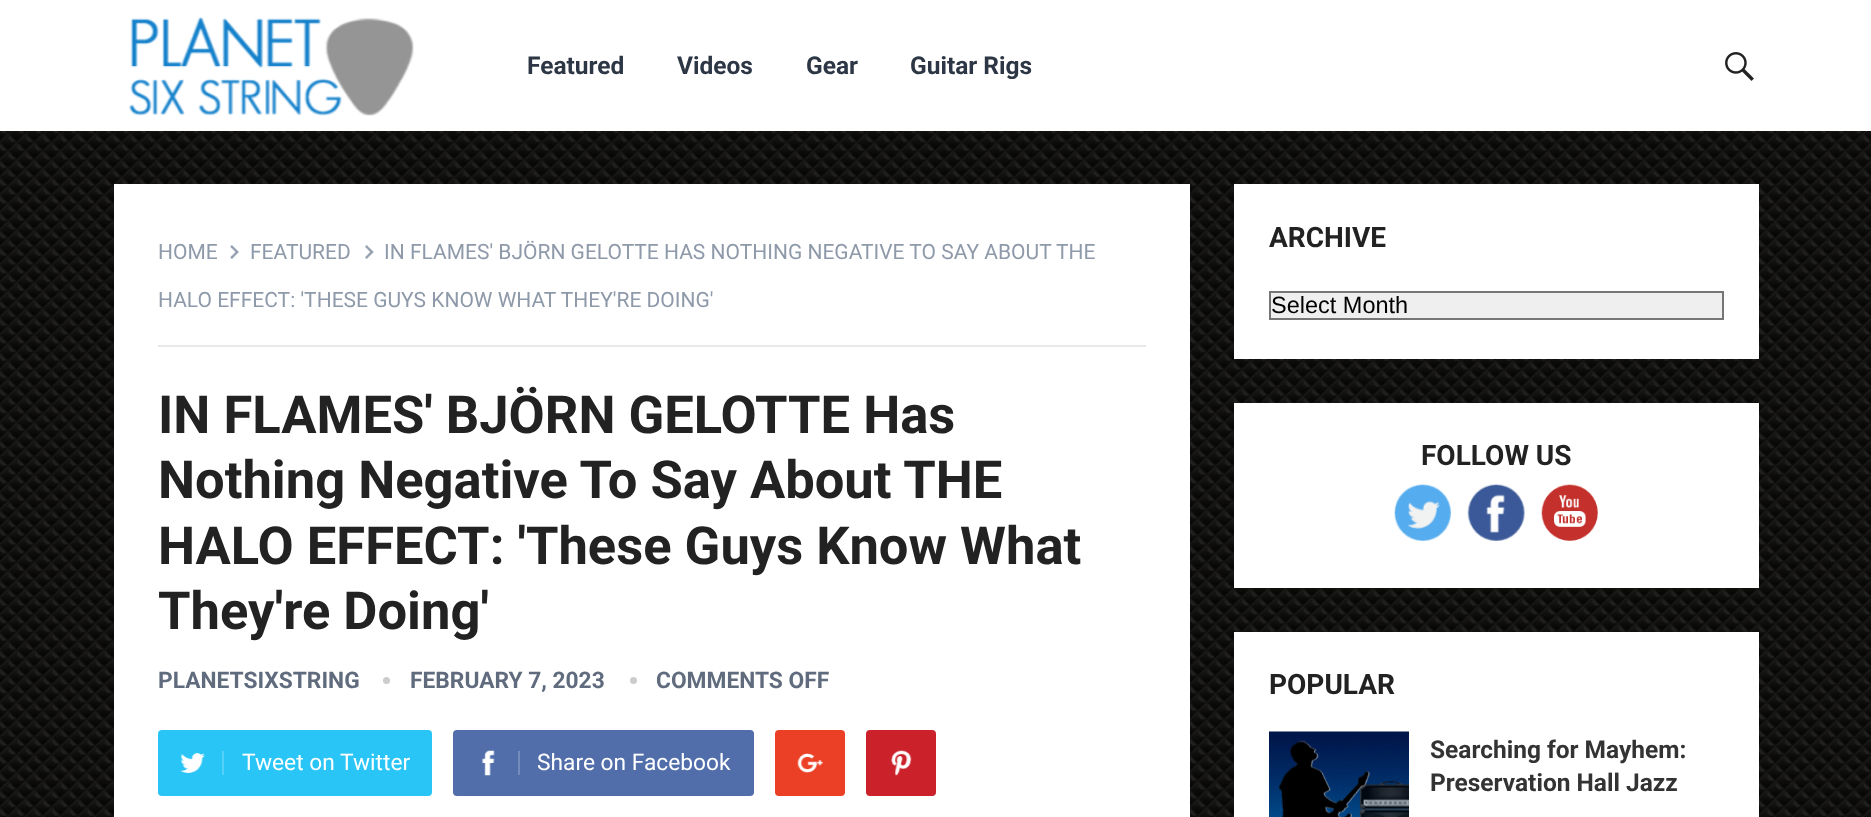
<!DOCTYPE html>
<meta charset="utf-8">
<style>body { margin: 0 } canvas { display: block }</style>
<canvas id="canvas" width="1871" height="817"></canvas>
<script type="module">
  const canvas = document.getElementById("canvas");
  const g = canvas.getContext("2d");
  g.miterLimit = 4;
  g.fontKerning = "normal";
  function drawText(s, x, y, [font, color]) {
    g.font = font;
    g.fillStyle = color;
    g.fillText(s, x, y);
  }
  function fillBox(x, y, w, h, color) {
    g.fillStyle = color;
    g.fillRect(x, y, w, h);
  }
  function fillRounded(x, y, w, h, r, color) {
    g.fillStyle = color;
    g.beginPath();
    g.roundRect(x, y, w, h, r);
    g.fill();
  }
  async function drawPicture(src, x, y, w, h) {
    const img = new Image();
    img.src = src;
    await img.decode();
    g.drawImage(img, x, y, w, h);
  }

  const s1 = ["bold 24.5px Roboto", "#2C3644"];
  const s2 = ["21px Roboto", "#8E99A9"];
  const s3 = ["bold 52.5px Roboto", "#222222"];
  const s4 = ["bold 22.75px Roboto", "#606C7E"];
  const s5 = ["22.75px Roboto", "#FFFFFF"];
  const s6 = ["bold 28px Roboto", "#222222"];
  const s7 = ["23.5px Liberation Sans", "#000000"];
  const s8 = ["bold 24.5px Roboto", "#333333"];

  fillBox(0, 0, 1871, 817, "#FFFFFF");
  await drawPicture("pic1.png", 0, 131, 1871, 686);
  await drawPicture("pic2.png", 129, 17, 285, 99);
  drawText("Featured", 527, 74, s1);
  drawText("Videos", 677, 74, s1);
  drawText("Gear", 806, 74, s1);
  drawText("Guitar Rigs", 910, 74, s1);
  await drawPicture("pic3.png", 1725, 52, 29, 29);
  fillBox(114, 184, 1076, 633, "#FFFFFF");
  fillBox(158, 345, 988, 2, "#E9E9E9");
  drawText("HOME", 158, 259, s2);
  await drawPicture("pic4.png", 230, 245, 9, 14);
  drawText("FEATURED", 250, 259, s2);
  await drawPicture("pic5.png", 365, 245, 9, 14);
  drawText("IN FLAMES' BJÖRN GELOTTE HAS NOTHING NEGATIVE TO SAY ABOUT THE", 384, 259, s2);
  drawText("HALO EFFECT: 'THESE GUYS KNOW WHAT THEY'RE DOING'", 158, 307, s2);
  drawText("IN FLAMES' BJÖRN GELOTTE Has", 158, 433, s3);
  drawText("Nothing Negative To Say About THE", 158, 498, s3);
  drawText("HALO EFFECT: 'These Guys Know What", 158, 564, s3);
  drawText("They're Doing'", 158, 629, s3);
  drawText("PLANETSIXSTRING", 158, 688, s4);
  g.fillStyle = "#CCCCCC";
  g.beginPath();
  g.arc(386.5, 680.5, 3.5, 0, Math.PI * 2);
  g.fill();
  drawText("FEBRUARY 7, 2023", 410, 688, s4);
  g.fillStyle = "#CCCCCC";
  g.beginPath();
  g.arc(633.5, 680.5, 3.5, 0, Math.PI * 2);
  g.fill();
  drawText("COMMENTS OFF", 656, 688, s4);
  fillRounded(158, 730, 274, 66, 4, "#29C5F6");
  await drawPicture("pic6.png", 180, 753, 26, 20);
  fillBox(222, 751, 2, 24, "#54D1F8");
  drawText("Tweet on Twitter", 242, 770, s5);
  fillRounded(453, 730, 301, 66, 4, "#516EAB");
  await drawPicture("pic7.png", 482, 750, 13, 26);
  fillBox(518, 751, 2, 24, "#748BBC");
  drawText("Share on Facebook", 537, 770, s5);
  fillRounded(775, 730, 70, 66, 4, "#EB4026");
  await drawPicture("pic8.png", 797, 753, 27, 20);
  fillRounded(866, 730, 70, 66, 4, "#CA212A");
  await drawPicture("pic9.png", 891, 750, 21, 26);
  fillBox(1234, 184, 525, 175, "#FFFFFF");
  drawText("ARCHIVE", 1269, 247, s6);
  g.fillStyle = "#EFEFEF";
  g.beginPath();
  g.rect(1270, 292, 453, 27);
  g.fill();
  g.strokeStyle = "#767676";
  g.lineWidth = 2;
  g.stroke();
  drawText("Select Month", 1271, 313, s7);
  fillBox(1234, 403, 525, 185, "#FFFFFF");
  drawText("FOLLOW US", 1421, 465, s6);
  await drawPicture("pic10.png", 1394, 484, 57, 57);
  await drawPicture("pic11.png", 1467, 484, 58, 57);
  await drawPicture("pic12.png", 1541, 484, 57, 57);
  fillBox(1234, 632, 525, 185, "#FFFFFF");
  drawText("POPULAR", 1269, 694, s6);
  await drawPicture("pic13.png", 1269, 731, 140, 86);
  drawText("Searching for Mayhem:", 1430, 758, s8);
  drawText("Preservation Hall Jazz", 1430, 791, s8);
</script>
